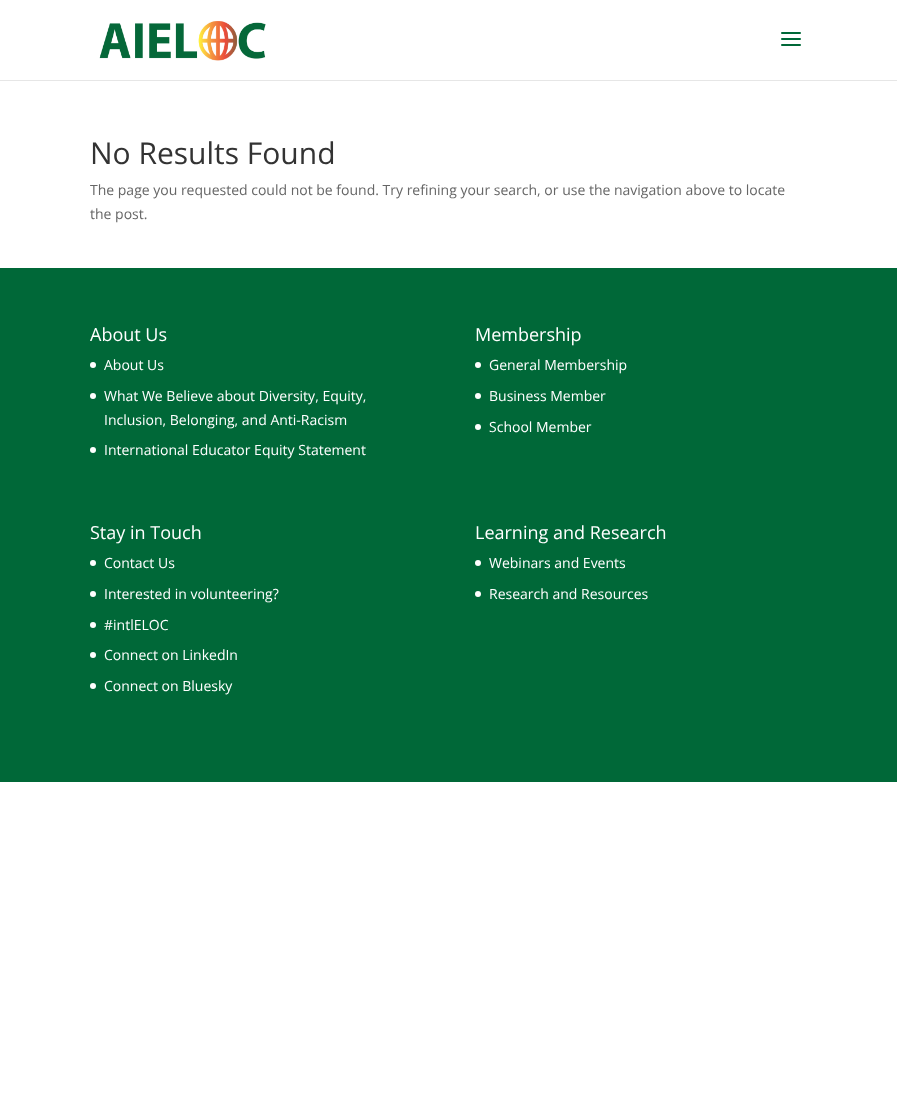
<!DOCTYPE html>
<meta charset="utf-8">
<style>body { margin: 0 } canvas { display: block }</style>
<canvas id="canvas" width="897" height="1116"></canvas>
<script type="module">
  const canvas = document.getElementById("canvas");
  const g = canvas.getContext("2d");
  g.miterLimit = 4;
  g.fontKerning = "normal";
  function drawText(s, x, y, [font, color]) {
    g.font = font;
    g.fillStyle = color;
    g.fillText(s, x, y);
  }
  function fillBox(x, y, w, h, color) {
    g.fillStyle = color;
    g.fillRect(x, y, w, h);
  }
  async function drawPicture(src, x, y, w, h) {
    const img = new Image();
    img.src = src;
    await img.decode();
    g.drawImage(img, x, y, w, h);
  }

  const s1 = ["30px Open Sans", "#333333"];
  const s2 = ["14px Open Sans", "#666666"];
  const s3 = ["18px Open Sans", "#FFFFFF"];
  const s4 = ["14px Open Sans", "#FFFFFF"];

  fillBox(0, 0, 897, 1116, "#FFFFFF");
  fillBox(0, 80, 897, 1, "#E6E6E6");
  await drawPicture("pic1.png", 99, 21, 167, 40);
  await drawPicture("pic2.png", 781, 32, 20, 14);
  drawText("No Results Found", 90, 164, s1);
  drawText("The page you requested could not be found. Try refining your search, or use the navigation above to locate", 90, 195, s2);
  drawText("the post.", 90, 219, s2);
  fillBox(0, 268, 897, 514, "#006838");
  drawText("About Us", 90, 341, s3);
  g.beginPath();
  g.arc(93, 365, 3, 0, Math.PI * 2);
  g.fill();
  drawText("About Us", 104, 370, s4);
  g.beginPath();
  g.arc(93, 396, 3, 0, Math.PI * 2);
  g.fill();
  drawText("What We Believe about Diversity, Equity,", 104, 401, s4);
  drawText("Inclusion, Belonging, and Anti-Racism", 104, 425, s4);
  g.beginPath();
  g.arc(93, 450, 3, 0, Math.PI * 2);
  g.fill();
  drawText("International Educator Equity Statement", 104, 455, s4);
  drawText("Membership", 475, 341, s3);
  g.beginPath();
  g.arc(478, 365, 3, 0, Math.PI * 2);
  g.fill();
  drawText("General Membership", 489, 370, s4);
  g.beginPath();
  g.arc(478, 396, 3, 0, Math.PI * 2);
  g.fill();
  drawText("Business Member", 489, 401, s4);
  g.beginPath();
  g.arc(478, 427, 3, 0, Math.PI * 2);
  g.fill();
  drawText("School Member", 489, 432, s4);
  drawText("Stay in Touch", 90, 539, s3);
  g.beginPath();
  g.arc(93, 563, 3, 0, Math.PI * 2);
  g.fill();
  drawText("Contact Us", 104, 568, s4);
  g.beginPath();
  g.arc(93, 594, 3, 0, Math.PI * 2);
  g.fill();
  drawText("Interested in volunteering?", 104, 599, s4);
  g.beginPath();
  g.arc(93, 625, 3, 0, Math.PI * 2);
  g.fill();
  drawText("#intlELOC", 104, 630, s4);
  g.beginPath();
  g.arc(93, 655, 3, 0, Math.PI * 2);
  g.fill();
  drawText("Connect on LinkedIn", 104, 660, s4);
  g.beginPath();
  g.arc(93, 686, 3, 0, Math.PI * 2);
  g.fill();
  drawText("Connect on Bluesky", 104, 691, s4);
  drawText("Learning and Research", 475, 539, s3);
  g.beginPath();
  g.arc(478, 563, 3, 0, Math.PI * 2);
  g.fill();
  drawText("Webinars and Events", 489, 568, s4);
  g.beginPath();
  g.arc(478, 594, 3, 0, Math.PI * 2);
  g.fill();
  drawText("Research and Resources", 489, 599, s4);
</script>
